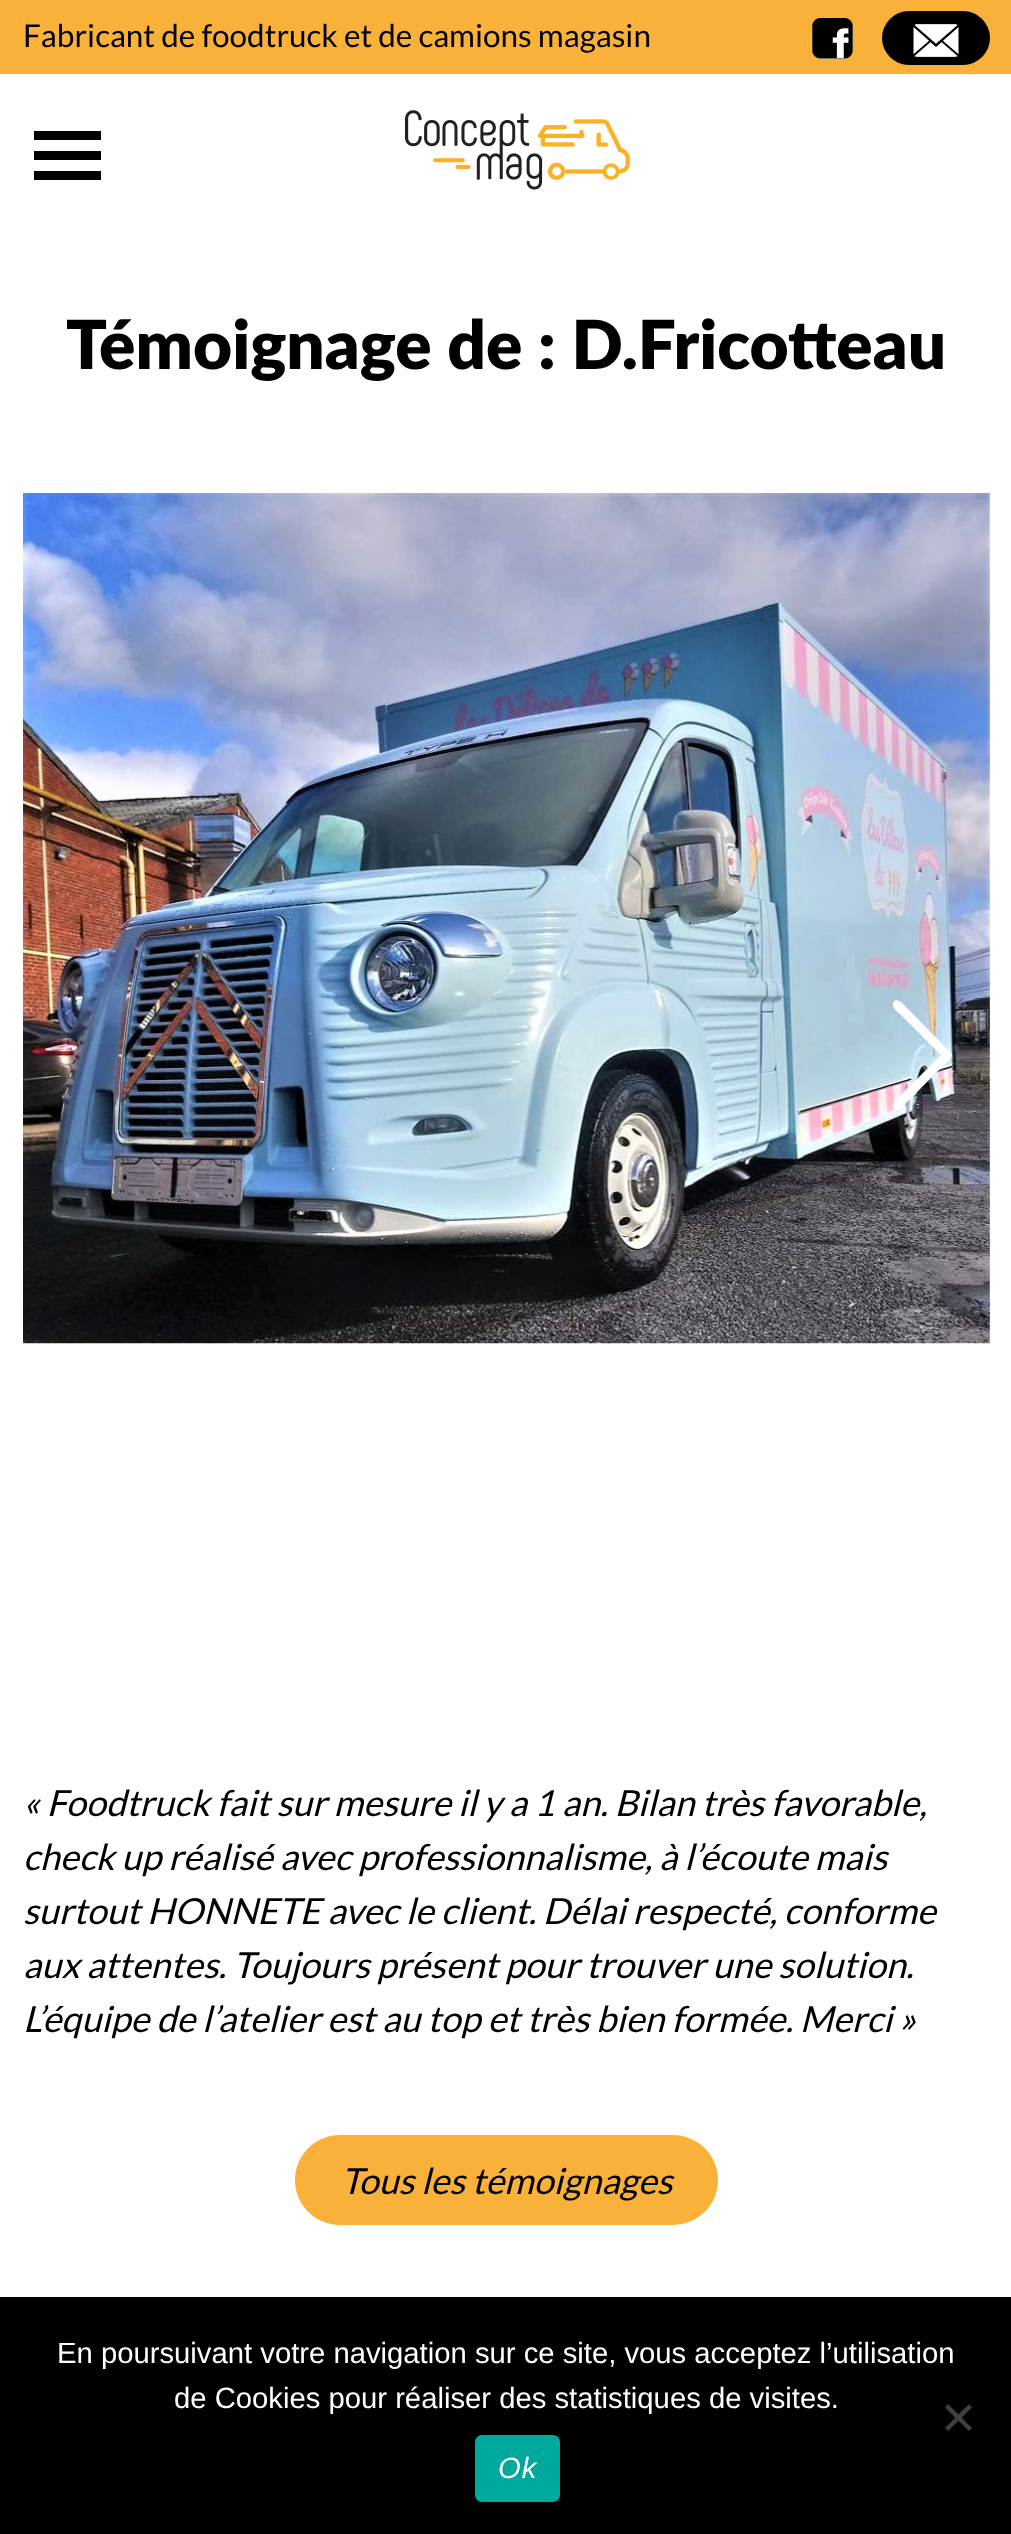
<!DOCTYPE html>
<meta charset="utf-8">
<style>body { margin: 0 } canvas { display: block }</style>
<canvas id="canvas" width="1011" height="2534"></canvas>
<script type="module">
  const canvas = document.getElementById("canvas");
  const g = canvas.getContext("2d");
  g.miterLimit = 4;
  g.fontKerning = "normal";
  function drawText(s, x, y, [font, color]) {
    g.font = font;
    g.fillStyle = color;
    g.fillText(s, x, y);
  }
  function fillBox(x, y, w, h, color) {
    g.fillStyle = color;
    g.fillRect(x, y, w, h);
  }
  function fillRounded(x, y, w, h, r, color) {
    g.fillStyle = color;
    g.beginPath();
    g.roundRect(x, y, w, h, r);
    g.fill();
  }
  async function drawPicture(src, x, y, w, h) {
    const img = new Image();
    img.src = src;
    await img.decode();
    g.drawImage(img, x, y, w, h);
  }

  const s1 = ["31.5px Lato", "#000000"];
  const s2 = ["900 67.5px Lato", "#000000"];
  const s3 = ["italic 36px Lato", "#000000"];
  const s4 = ["29.25px Liberation Sans", "#FFFFFF"];
  const s5 = ["italic 29.25px Liberation Sans", "#FFFFFF"];

  fillBox(0, 0, 1011, 2534, "#FAB13A");
  drawText("Fabricant de foodtruck et de camions magasin", 23, 47, s1);
  fillRounded(812, 18, 41, 41, 11, "#FFFFFF");
  await drawPicture("pic1.png", 812, 18, 41, 41);
  fillRounded(882, 11, 108, 54, 27, "#000000");
  await drawPicture("pic2.png", 913, 24, 46, 33);
  fillBox(0, 74, 1011, 2223, "#FFFFFF");
  fillBox(34, 151, 67, 9, "#000000");
  fillBox(34, 131, 67, 9, "#000000");
  fillBox(34, 171, 67, 9, "#000000");
  await drawPicture("pic3.png", 405, 110, 225, 80);
  drawText("Témoignage de : D.Fricotteau", 66, 369, s2);
  await drawPicture("pic4.png", 23, 493, 967, 851);
  g.fillStyle = "#FFFFFF";
  g.beginPath();
  g.moveTo(941, 1055);
  g.lineTo(902, 1094);
  g.bezierCurveTo(899, 1098, 894, 1100, 893, 1105);
  g.bezierCurveTo(892, 1108, 896, 1111, 899, 1110);
  g.lineTo(900, 1109);
  g.lineTo(951, 1058);
  g.lineTo(952, 1055);
  g.lineTo(952, 1054);
  g.lineTo(909, 1010);
  g.bezierCurveTo(908, 1010, 897, 994, 893, 1003);
  g.bezierCurveTo(891, 1009, 901, 1014, 902, 1016);
  g.closePath();
  g.fill();
  drawText("« Foodtruck fait sur mesure il y a 1 an. Bilan très favorable,", 23, 1816, s3);
  drawText("check up réalisé avec professionnalisme, à l’écoute mais", 23, 1870, s3);
  drawText("surtout HONNETE avec le client. Délai respecté, conforme", 23, 1924, s3);
  drawText("aux attentes. Toujours présent pour trouver une solution.", 23, 1978, s3);
  drawText("L’équipe de l’atelier est au top et très bien formée. Merci »", 23, 2032, s3);
  fillRounded(295, 2135, 423, 90, 45, "#FAB13A");
  drawText("Tous les témoignages", 341, 2194, s3);
  fillBox(0, 2297, 1011, 237, "#000000");
  drawText("En poursuivant votre navigation sur ce site, vous acceptez l’utilisation", 57, 2363, s4);
  drawText("de Cookies pour réaliser des statistiques de visites.", 174, 2408, s4);
  g.fillStyle = "#404040";
  g.beginPath();
  g.moveTo(969, 2404);
  g.lineTo(972, 2407.5);
  g.lineTo(948, 2431);
  g.lineTo(945, 2428);
  g.closePath();
  g.fill();
  g.beginPath();
  g.moveTo(945, 2407.5);
  g.lineTo(948, 2404);
  g.lineTo(972, 2428);
  g.lineTo(969, 2431);
  g.closePath();
  g.fill();
  fillRounded(475, 2435, 85, 67, 7, "#00A99D");
  g.letterSpacing = "1px";
  drawText("Ok", 498, 2478, s5);
</script>
